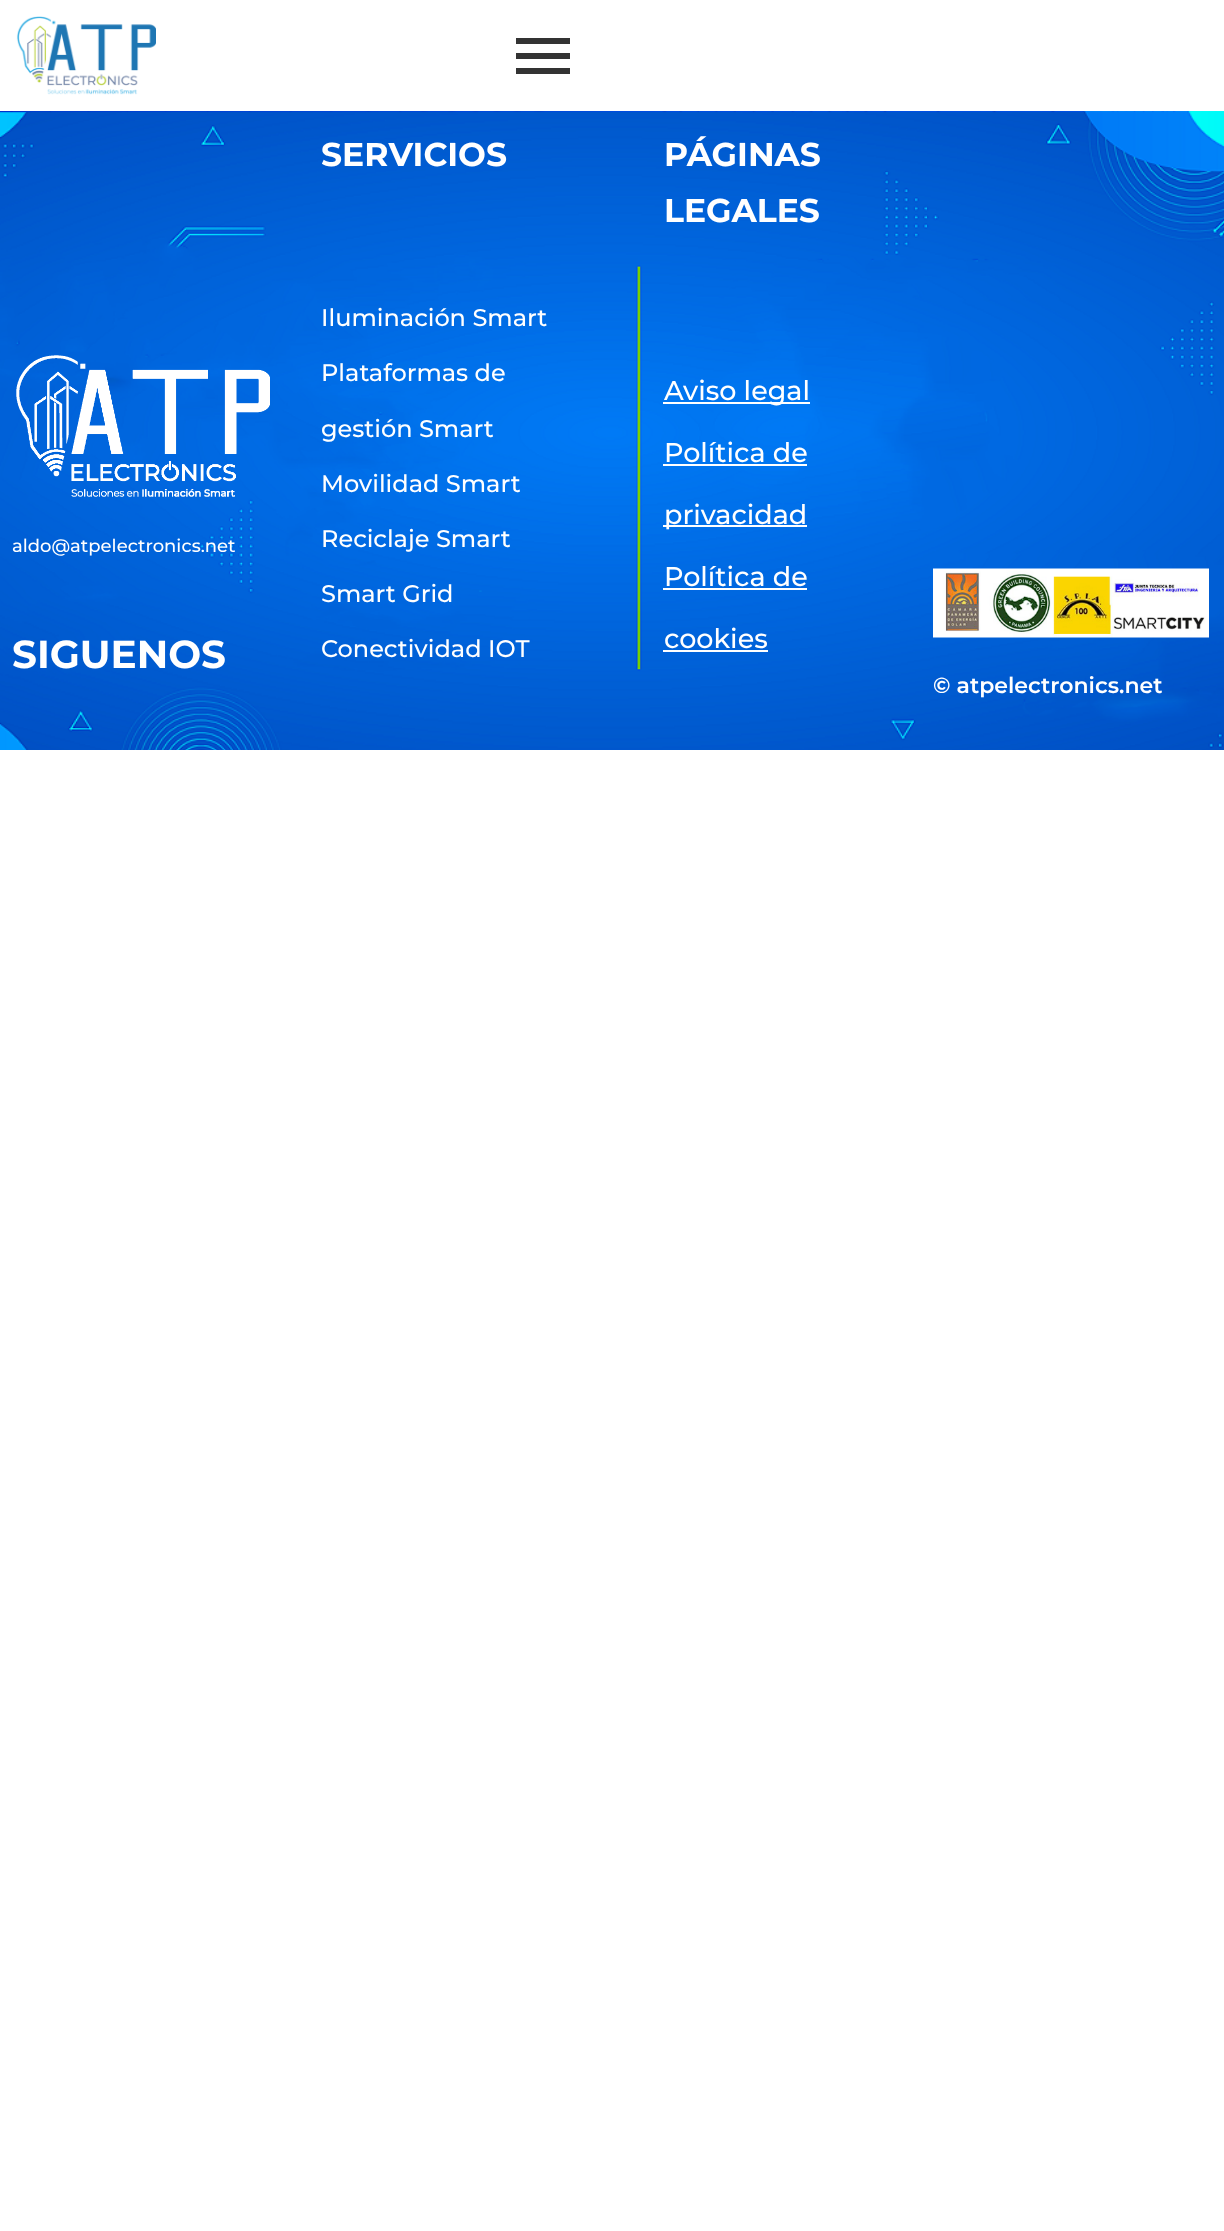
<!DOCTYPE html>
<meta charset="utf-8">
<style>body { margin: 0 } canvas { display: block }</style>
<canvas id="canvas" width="1224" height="2231"></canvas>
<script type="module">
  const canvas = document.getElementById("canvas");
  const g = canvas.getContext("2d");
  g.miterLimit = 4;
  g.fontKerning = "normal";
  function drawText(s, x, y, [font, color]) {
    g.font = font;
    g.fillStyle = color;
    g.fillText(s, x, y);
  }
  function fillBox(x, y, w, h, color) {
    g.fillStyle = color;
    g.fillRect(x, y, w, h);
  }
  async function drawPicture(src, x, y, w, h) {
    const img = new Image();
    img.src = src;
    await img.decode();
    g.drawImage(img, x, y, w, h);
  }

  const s1 = ["500 18px Montserrat", "#FFFFFF"];
  const s2 = ["bold 39px Montserrat", "#FFFFFF"];
  const s3 = ["bold 33px Montserrat", "#FFFFFF"];
  const s4 = ["500 24px Montserrat", "#FFFFFF"];
  const s5 = ["500 27px Montserrat", "#FFFFFF"];
  const s6 = ["600 22px Montserrat", "#FFFFFF"];

  fillBox(0, 0, 1224, 2231, "#FFFFFF");
  await drawPicture("pic1.png", 16, 16, 140, 79);
  fillBox(516, 38, 54, 6, "#333333");
  fillBox(516, 53, 54, 6, "#333333");
  fillBox(516, 68, 54, 6, "#333333");
  await drawPicture("pic2.png", 0, 111, 1224, 639);
  await drawPicture("pic3.png", 16, 355, 254, 142);
  drawText("aldo@atpelectronics.net", 12, 552, s1);
  drawText("SIGUENOS", 12, 668, s2);
  drawText("SERVICIOS", 321, 166, s3);
  drawText("Iluminación Smart", 321, 326, s4);
  drawText("Plataformas de", 321, 381, s4);
  drawText("gestión Smart", 321, 437, s4);
  drawText("Movilidad Smart", 321, 492, s4);
  drawText("Reciclaje Smart", 321, 547, s4);
  drawText("Smart Grid", 321, 602, s4);
  drawText("Conectividad IOT", 321, 657, s4);
  drawText("PÁGINAS", 664, 166, s3);
  drawText("LEGALES", 664, 222, s3);
  fillBox(663, 402, 147, 2, "#FFFFFF");
  drawText("Aviso legal", 664, 400, s5);
  drawText("Política de", 664, 462, s5);
  fillBox(663, 464, 144, 2, "#FFFFFF");
  fillBox(663, 525, 144, 2, "#FFFFFF");
  drawText("privacidad", 664, 524, s5);
  drawText("Política de", 664, 586, s5);
  fillBox(663, 588, 144, 2, "#FFFFFF");
  drawText("cookies", 664, 648, s5);
  fillBox(663, 650, 105, 2, "#FFFFFF");
  await drawPicture("pic4.png", 933, 568, 276, 70);
  drawText("© atpelectronics.net", 933, 693, s6);
</script>
